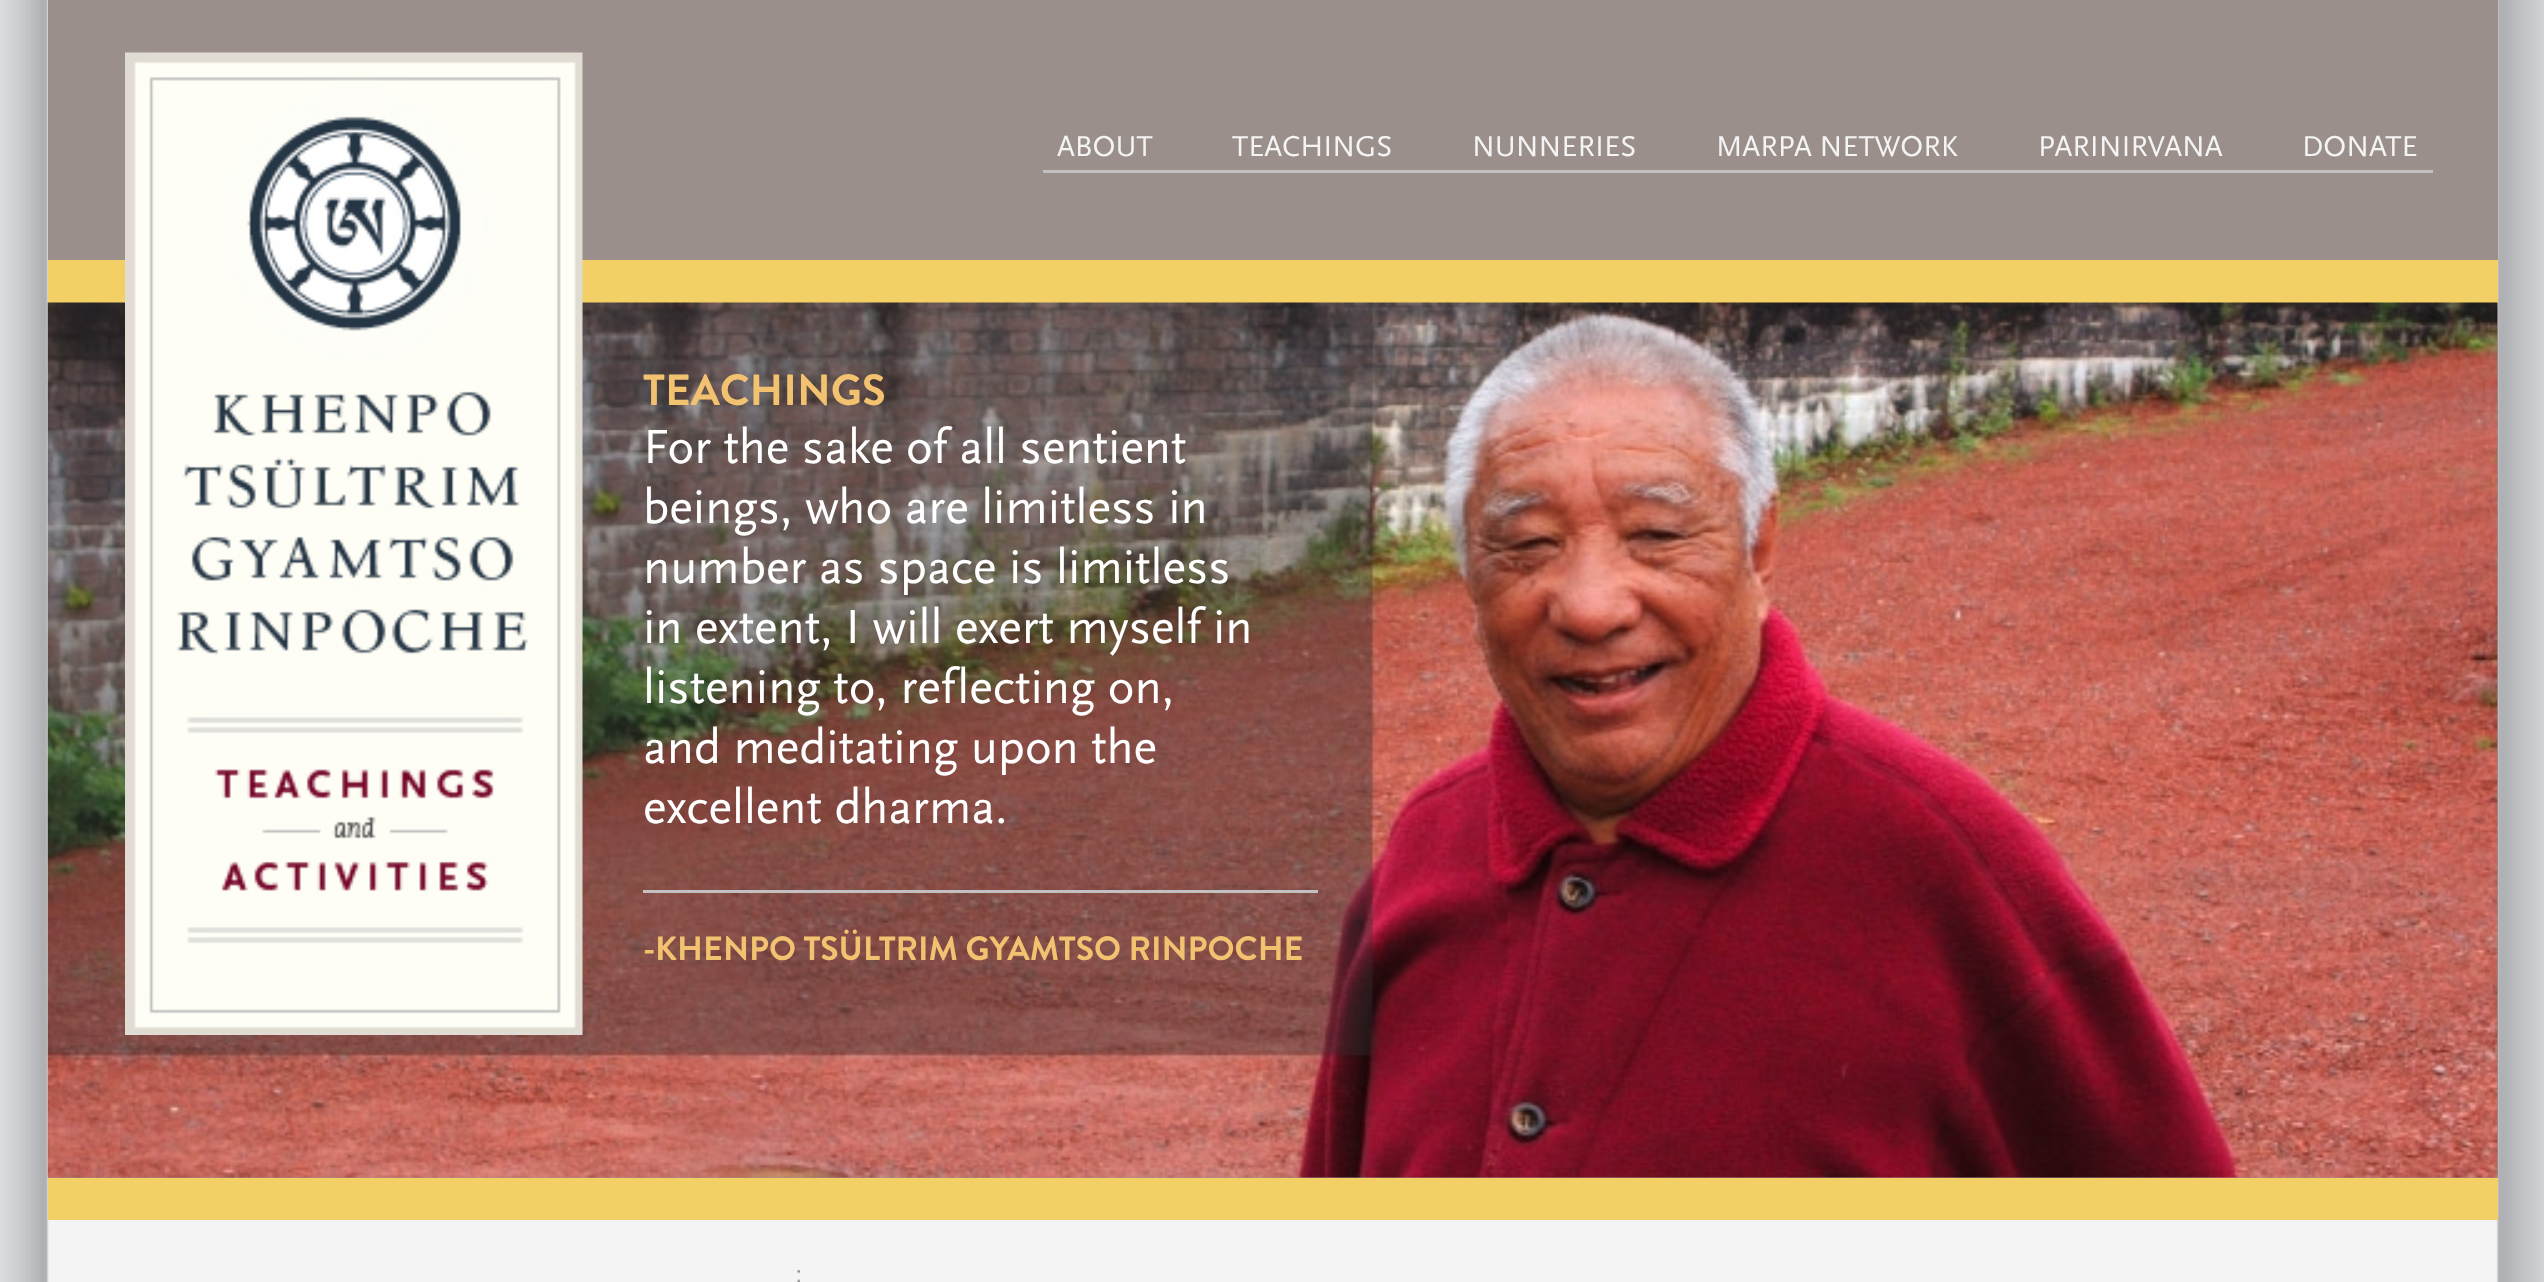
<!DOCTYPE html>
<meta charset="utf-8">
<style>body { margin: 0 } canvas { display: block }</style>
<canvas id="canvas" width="2544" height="1282"></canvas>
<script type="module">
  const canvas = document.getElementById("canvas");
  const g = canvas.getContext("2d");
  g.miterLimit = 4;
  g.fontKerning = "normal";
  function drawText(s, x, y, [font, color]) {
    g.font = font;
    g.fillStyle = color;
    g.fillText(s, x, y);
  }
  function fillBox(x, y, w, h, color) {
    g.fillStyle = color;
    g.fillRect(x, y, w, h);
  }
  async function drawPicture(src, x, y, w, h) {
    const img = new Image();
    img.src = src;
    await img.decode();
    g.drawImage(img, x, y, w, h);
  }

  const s1 = ["30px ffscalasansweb", "#F4F4F4"];
  const s2 = ["bold 43.75px Brandon Grotesque", "#F2C270"];
  const s3 = ["50px ffscalasansweb", "#FFFFFF"];
  const s4 = ["bold 33.75px Brandon Grotesque", "#F2C270"];

  fillBox(0, 0, 2544, 1282, "#FFFFFF");
  await drawPicture("pic1.png", 0, 0, 2544, 1282);
  fillBox(48, 0, 2450, 1178, "#9A8F8B");
  fillBox(48, 260, 2450, 43, "#F2D065");
  await drawPicture("pic3.png", 47, 302, 2451, 876);
  await drawPicture("pic2.png", 125, 52, 458, 983);
  fillBox(1043, 170, 1390, 3, "#C1C1C1");
  drawText("ABOUT", 1057, 156, s1);
  drawText("TEACHINGS", 1232, 156, s1);
  drawText("NUNNERIES", 1472, 156, s1);
  drawText("MARPA NETWORK", 1716, 156, s1);
  drawText("PARINIRVANA", 2038, 156, s1);
  drawText("DONATE", 2302, 156, s1);
  fillBox(48, 1178, 2450, 42, "#F2D065");
  drawText("TEACHINGS", 643, 405, s2);
  drawText("For the sake of all sentient", 643, 463, s3);
  drawText("beings, who are limitless in", 643, 523, s3);
  drawText("number as space is limitless", 643, 583, s3);
  drawText("in extent, I will exert myself in", 643, 643, s3);
  drawText("listening to, reflecting on,", 643, 703, s3);
  drawText("and meditating upon the", 643, 763, s3);
  drawText("excellent dharma.", 643, 823, s3);
  fillBox(643, 890, 675, 3, "#C2C0C1");
  drawText("-KHENPO TSÜLTRIM GYAMTSO RINPOCHE", 643, 960, s4);
  await drawPicture("pic4.png", 797, 1270, 3, 12);
</script>
